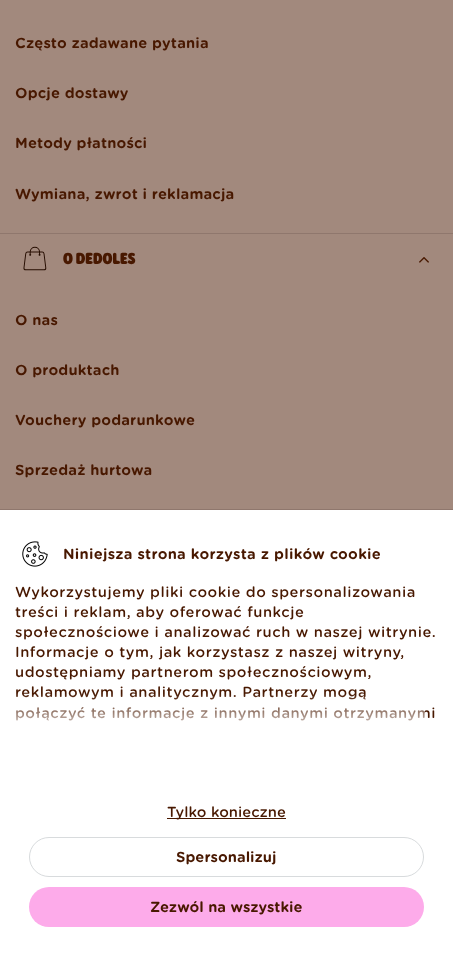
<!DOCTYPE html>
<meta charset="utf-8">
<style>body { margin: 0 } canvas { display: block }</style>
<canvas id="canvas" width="453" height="973"></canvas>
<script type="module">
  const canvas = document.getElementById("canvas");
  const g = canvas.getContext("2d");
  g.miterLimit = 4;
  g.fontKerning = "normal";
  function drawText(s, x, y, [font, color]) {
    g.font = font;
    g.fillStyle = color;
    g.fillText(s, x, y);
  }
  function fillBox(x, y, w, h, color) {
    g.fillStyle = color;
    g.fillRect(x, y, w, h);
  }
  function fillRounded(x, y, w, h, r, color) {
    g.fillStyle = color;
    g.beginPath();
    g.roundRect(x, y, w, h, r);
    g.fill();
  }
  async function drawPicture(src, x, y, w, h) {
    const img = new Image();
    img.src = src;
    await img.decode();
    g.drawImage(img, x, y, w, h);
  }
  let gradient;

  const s1 = ["bold 14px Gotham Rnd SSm", "#481800"];
  const s2 = ["900 16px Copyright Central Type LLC", "#481800"];
  const s3 = ["500 14px Gotham Rnd SSm", "#481800"];

  fillBox(0, 0, 453, 973, "#A2897D");
  g.letterSpacing = "0.15px";
  drawText("Często zadawane pytania", 15, 48, s1);
  drawText("Opcje dostawy", 15, 98, s1);
  drawText("Metody płatności", 15, 148, s1);
  drawText("Wymiana, zwrot i reklamacja", 15, 199, s1);
  fillBox(0, 233, 453, 1, "#8F776D");
  await drawPicture("pic1.png", 23, 246, 24, 25);
  g.letterSpacing = "0px";
  drawText("O DEDOLES", 63, 264, s2);
  await drawPicture("pic2.png", 419, 257, 10, 6);
  g.letterSpacing = "0.15px";
  drawText("O nas", 15, 325, s1);
  drawText("O produktach", 15, 375, s1);
  drawText("Vouchery podarunkowe", 15, 425, s1);
  drawText("Sprzedaż hurtowa", 15, 475, s1);
  fillBox(0, 509, 453, 1, "#8F776D");
  fillBox(0, 510, 453, 463, "#FFFFFF");
  await drawPicture("pic3.png", 22, 541, 26, 26);
  g.letterSpacing = "0.25px";
  drawText("Niniejsza strona korzysta z plików cookie", 63, 559, s1);
  g.letterSpacing = "0.5px";
  drawText("Wykorzystujemy pliki cookie do spersonalizowania", 15, 597, s3);
  drawText("treści i reklam, aby oferować funkcje", 15, 617, s3);
  drawText("społecznościowe i analizować ruch w naszej witrynie.", 15, 637, s3);
  drawText("Informacje o tym, jak korzystasz z naszej witryny,", 15, 657, s3);
  drawText("udostępniamy partnerom społecznościowym,", 15, 677, s3);
  drawText("reklamowym i analitycznym. Partnerzy mogą", 15, 697, s3);
  drawText("połączyć te informacje z innymi danymi otrzymanymi", 15, 718, s3);
  gradient = g.createLinearGradient(221, 763, 221, 693);
  gradient.addColorStop(0, "#FFFFFF");
  gradient.addColorStop(0.5, "rgba(255, 255, 255, 0.8)");
  gradient.addColorStop(1, "rgba(255, 255, 255, 0)");
  g.fillStyle = gradient;
  g.fillRect(16, 694, 409, 27);
  fillBox(167, 818, 119, 1, "#481800");
  g.letterSpacing = "0px";
  drawText("Tylko konieczne", 167, 817, s3);
  g.beginPath();
  g.roundRect(29.5, 837.5, 394, 39, 19.5);
  g.strokeStyle = "#D8DBDD";
  g.stroke();
  drawText("Spersonalizuj", 176, 862, s1);
  fillRounded(29, 887, 395, 40, 20, "#FDABEA");
  drawText("Zezwól na wszystkie", 150, 912, s1);
</script>
